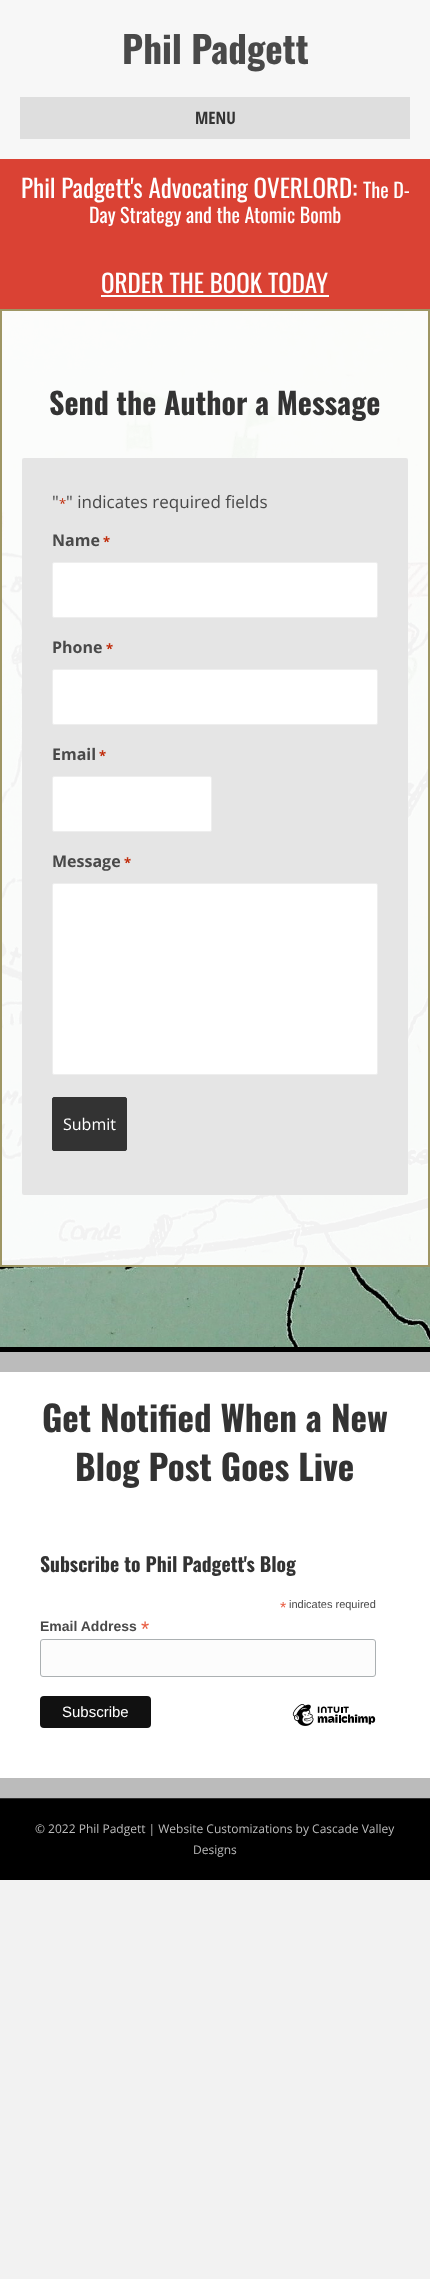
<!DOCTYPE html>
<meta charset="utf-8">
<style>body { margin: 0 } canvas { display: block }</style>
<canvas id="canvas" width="430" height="2279"></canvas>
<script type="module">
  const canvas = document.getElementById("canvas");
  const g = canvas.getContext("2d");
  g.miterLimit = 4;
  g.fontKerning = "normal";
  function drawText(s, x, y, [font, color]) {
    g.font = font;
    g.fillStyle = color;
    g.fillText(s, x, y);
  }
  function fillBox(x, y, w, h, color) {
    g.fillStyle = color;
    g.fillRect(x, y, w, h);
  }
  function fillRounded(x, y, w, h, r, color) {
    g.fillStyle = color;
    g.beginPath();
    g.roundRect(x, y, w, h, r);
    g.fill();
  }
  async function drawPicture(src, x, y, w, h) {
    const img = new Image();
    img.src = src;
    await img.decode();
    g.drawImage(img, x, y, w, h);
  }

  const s1 = ["bold 37px Oswald", "#494949"];
  const s2 = ["bold 17px Open Sans Condensed", "#333333"];
  const s3 = ["25px Oswald", "#FFFFFF"];
  const s4 = ["20px Oswald", "#FFFFFF"];
  const s5 = ["bold 30px Oswald", "#333333"];
  const s6 = ["17px Open Sans", "#494949"];
  const s7 = ["13px Open Sans", "#C02B0A"];
  const s8 = ["bold 16px Open Sans", "#494949"];
  const s9 = ["bold 13px Open Sans", "#C02B0A"];
  const s10 = ["16px Open Sans", "#FFFFFF"];
  const s11 = ["bold 35px Oswald", "#333333"];
  const s12 = ["bold 19.6px Oswald", "#333333"];
  const s13 = ["16px Liberation Sans", "#E85C41"];
  const s14 = ["11px Liberation Sans", "#494949"];
  const s15 = ["bold 14px Liberation Sans", "#494949"];
  const s16 = ["21px Liberation Sans", "#E85C41"];
  const s17 = ["15px Liberation Sans", "#FFFFFF"];
  const s18 = ["12px Open Sans", "#BBBBBB"];

  fillBox(0, 0, 430, 2279, "#F2F2F2");
  await drawPicture("pic1.png", 0, 311, 430, 1036);
  fillBox(0, 0, 430, 159, "#F7F7F7");
  drawText("Phil Padgett", 122, 64, s1);
  fillBox(20, 97, 390, 42, "#DEDEDE");
  drawText("MENU", 195, 124, s2);
  fillBox(0, 159, 430, 150, "#DA4234");
  drawText("Phil Padgett's Advocating OVERLORD:", 21, 198, s3);
  drawText("The D-", 363, 198, s4);
  drawText("Day Strategy and the Atomic Bomb", 89, 223, s4);
  drawText("ORDER THE BOOK TODAY", 101, 293, s3);
  fillBox(101, 295, 228, 2, "#FFFFFF");
  g.fillStyle = "rgba(255, 255, 255, 0.95)";
  g.beginPath();
  g.rect(1, 310, 428, 956);
  g.fill();
  g.strokeStyle = "#9E9664";
  g.lineWidth = 2;
  g.stroke();
  drawText("Send the Author a Message", 49, 415, s5);
  fillRounded(22, 458, 386, 737, 2, "#E5E5E5");
  drawText("\"", 52, 508, s6);
  drawText("*", 59, 508, s7);
  drawText("\" indicates required fields", 66, 508, s6);
  drawText("Name", 52, 546, s8);
  drawText("*", 103, 546, s9);
  g.fillStyle = "#FFFFFF";
  g.beginPath();
  g.roundRect(52.5, 562.5, 325, 55, 1.5);
  g.fill();
  g.strokeStyle = "#EEEEEE";
  g.lineWidth = 1;
  g.stroke();
  drawText("Phone", 52, 653, s8);
  drawText("*", 106, 653, s9);
  g.fillStyle = "#FFFFFF";
  g.beginPath();
  g.roundRect(52.5, 669.5, 325, 55, 1.5);
  g.fill();
  g.stroke();
  drawText("Email", 52, 760, s8);
  drawText("*", 99, 760, s9);
  g.fillStyle = "#FFFFFF";
  g.beginPath();
  g.roundRect(52.5, 776.5, 159, 55, 1.5);
  g.fill();
  g.stroke();
  drawText("Message", 52, 867, s8);
  drawText("*", 124, 867, s9);
  g.fillStyle = "#FFFFFF";
  g.beginPath();
  g.roundRect(52.5, 883.5, 325, 191, 1.5);
  g.fill();
  g.stroke();
  g.fillStyle = "#333333";
  g.beginPath();
  g.roundRect(52.5, 1097.5, 74, 53, 1.5);
  g.fill();
  g.strokeStyle = "#333333";
  g.stroke();
  drawText("Submit", 63, 1130, s10);
  fillBox(0, 1352, 430, 446, "#BBBBBB");
  fillBox(0, 1347, 430, 5, "#000000");
  fillBox(0, 1372, 430, 406, "#FFFFFF");
  drawText("Get Notified When a New", 42, 1432, s11);
  drawText("Blog Post Goes Live", 75, 1481, s11);
  drawText("Subscribe to Phil Padgett's Blog", 40, 1572, s12);
  drawText("*", 280, 1613, s13);
  drawText("indicates required", 289, 1608, s14);
  drawText("Email Address", 40, 1631, s15);
  drawText("*", 141, 1636, s16);
  g.fillStyle = "#FCFCFC";
  g.beginPath();
  g.roundRect(40.5, 1639.5, 335, 37, 2.5);
  g.fill();
  g.strokeStyle = "#ABB0B2";
  g.stroke();
  fillRounded(40, 1696, 111, 32, 4, "#111111");
  drawText("Subscribe", 62, 1717, s17);
  await drawPicture("pic2.png", 292, 1704, 84, 22);
  fillBox(0, 1799, 430, 81, "#000000");
  fillBox(0, 1798, 430, 1, "#303030");
  drawText("© 2022 Phil Padgett | Website Customizations by Cascade Valley", 35, 1833, s18);
  drawText("Designs", 193, 1854, s18);
</script>
